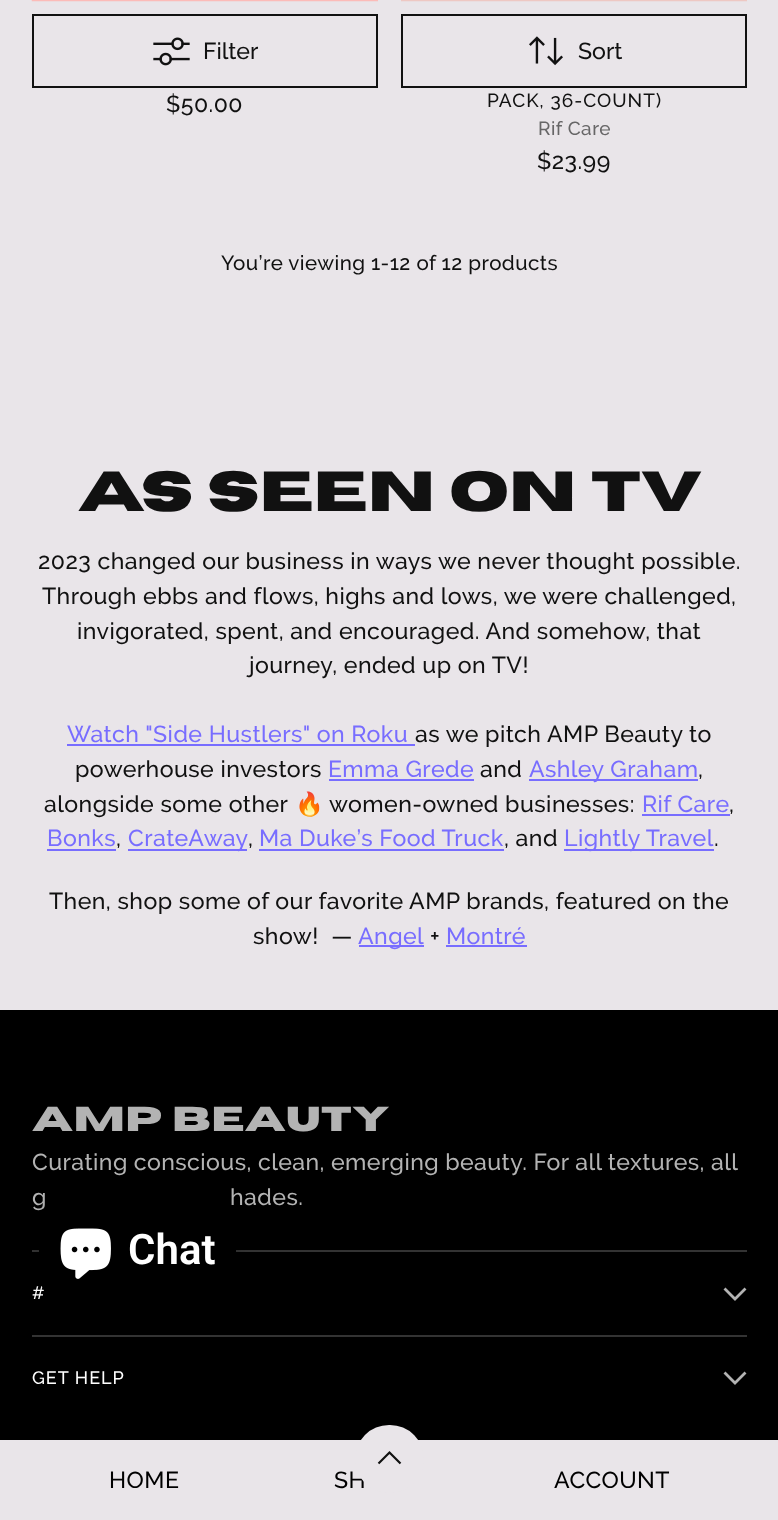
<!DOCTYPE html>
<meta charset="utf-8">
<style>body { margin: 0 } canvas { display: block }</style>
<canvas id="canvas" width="778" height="1520"></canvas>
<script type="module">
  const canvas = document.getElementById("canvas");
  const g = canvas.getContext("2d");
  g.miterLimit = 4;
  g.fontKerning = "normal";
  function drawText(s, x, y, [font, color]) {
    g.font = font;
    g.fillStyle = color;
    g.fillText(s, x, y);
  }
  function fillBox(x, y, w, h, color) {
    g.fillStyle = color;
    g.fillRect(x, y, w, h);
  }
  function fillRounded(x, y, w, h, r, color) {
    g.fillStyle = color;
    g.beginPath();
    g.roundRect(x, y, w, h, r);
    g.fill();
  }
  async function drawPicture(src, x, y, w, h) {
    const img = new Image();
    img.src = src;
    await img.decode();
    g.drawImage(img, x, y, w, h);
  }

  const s1 = ["500 23.1px Raleway", "#111111"];
  const s2 = ["500 19px Raleway", "#111111"];
  const s3 = ["500 19px Raleway", "#676667"];
  const s4 = ["500 20.5px Raleway", "#111111"];
  const s5 = ["bold 56.4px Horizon", "#111111"];
  const s6 = ["500 23.1px Raleway", "#786DFF"];
  const s7 = ["23.1px Noto Color Emoji", "#111111"];
  const s8 = ["bold 34.6px Horizon", "#B3B3B3"];
  const s9 = ["500 23.1px Raleway", "#B3B3B3"];
  const s10 = ["500 18px Raleway", "#FFFFFF"];
  const s11 = ["500 23.1px Raleway", "#000000"];
  const s12 = ["600 42px Roboto", "#FFFFFF"];

  fillBox(0, 0, 778, 1520, "#E9E5E9");
  g.strokeStyle = "#111111";
  g.lineWidth = 2;
  g.strokeRect(33, 15, 344, 72);
  await drawPicture("pic1.png", 153, 37, 37, 29);
  drawText("Filter", 203, 59, s1);
  g.strokeRect(402, 15, 344, 72);
  await drawPicture("pic2.png", 529, 36, 34, 30);
  drawText("Sort", 578, 59, s1);
  await drawPicture("pic3.png", 31, 0, 347, 2);
  g.letterSpacing = "0.45px";
  drawText("$50.00", 166, 112, s1);
  await drawPicture("pic4.png", 401, 0, 346, 2);
  g.letterSpacing = "1px";
  drawText("PACK, 36-COUNT)", 487, 107, s2);
  g.letterSpacing = "0.5px";
  drawText("Rif Care", 538, 135, s3);
  g.letterSpacing = "0.45px";
  drawText("$23.99", 537, 169, s1);
  drawText("You’re viewing 1-12 of 12 products", 221, 270, s4);
  g.letterSpacing = "0px";
  drawText("AS SEEN ON TV", 78, 511, s5);
  g.letterSpacing = "0.45px";
  drawText("2023 changed our business in ways we never thought possible.", 38, 569, s1);
  drawText("Through ebbs and flows, highs and lows, we were challenged,", 42, 604, s1);
  drawText("invigorated, spent, and encouraged. And somehow, that", 77, 639, s1);
  drawText("journey, ended up on TV!", 249, 673, s1);
  drawText("Watch \"Side Hustlers\" on Roku", 67, 742, s6);
  fillBox(67, 744, 348, 2, "#786DFF");
  drawText("as we pitch AMP Beauty to", 415, 742, s1);
  drawText("powerhouse investors", 75, 777, s1);
  drawText("Emma Grede", 328, 777, s6);
  fillBox(329, 779, 145, 2, "#786DFF");
  drawText("and", 480, 777, s1);
  fillBox(529, 779, 169, 2, "#786DFF");
  drawText("Ashley Graham", 529, 777, s6);
  drawText(",", 698, 777, s1);
  drawText("alongside some other", 44, 812, s1);
  drawText("🔥", 295, 812, s7);
  drawText("women-owned businesses:", 329, 812, s1);
  drawText("Rif Care", 642, 812, s6);
  fillBox(642, 814, 88, 2, "#786DFF");
  drawText(",", 729, 812, s1);
  drawText("Bonks", 47, 846, s6);
  fillBox(47, 849, 69, 2, "#786DFF");
  drawText(",", 116, 846, s1);
  fillBox(128, 849, 119, 2, "#786DFF");
  drawText("CrateAway", 128, 846, s6);
  drawText(",", 248, 846, s1);
  drawText("Ma Duke’s Food Truck", 259, 846, s6);
  fillBox(259, 849, 245, 2, "#786DFF");
  drawText(", and", 504, 846, s1);
  fillBox(564, 849, 150, 2, "#786DFF");
  drawText("Lightly Travel", 564, 846, s6);
  drawText(".", 714, 846, s1);
  drawText("Then, shop some of our favorite AMP brands, featured on the", 49, 909, s1);
  drawText("show!  —", 253, 944, s1);
  fillBox(359, 945, 65, 2, "#786DFF");
  drawText("Angel", 358, 944, s6);
  drawText("+", 430, 944, s1);
  drawText("Montré", 446, 944, s6);
  fillBox(446, 945, 81, 2, "#786DFF");
  fillBox(0, 1010, 778, 430, "#000000");
  fillBox(32, 1250, 715, 2, "#333333");
  drawText("AMP Beauty", 32, 1131, s8);
  g.wordSpacing = "-0.25px";
  drawText("Curating conscious, clean, emerging beauty. For all textures, all", 32, 1170, s9);
  g.wordSpacing = "0px";
  drawText("g", 32, 1205, s9);
  drawText("hades.", 230, 1205, s9);
  fillBox(32, 1335, 715, 2, "#333333");
  g.letterSpacing = "1px";
  drawText("#", 32, 1299, s10);
  g.beginPath();
  g.moveTo(724.5, 1288.5);
  g.lineTo(735, 1299);
  g.lineTo(745.5, 1288.5);
  g.strokeStyle = "#B3B3B3";
  g.lineWidth = 2.8;
  g.stroke();
  drawText("GET HELP", 32, 1384, s10);
  g.beginPath();
  g.moveTo(724.5, 1372.5);
  g.lineTo(735, 1383);
  g.lineTo(745.5, 1372.5);
  g.stroke();
  g.letterSpacing = "0.45px";
  drawText("SH", 334, 1488, s11);
  fillRounded(355, 1425, 69, 68, 34, "#E9E5E9");
  g.beginPath();
  g.moveTo(400.5, 1463.5);
  g.lineTo(389.5, 1452.5);
  g.lineTo(378.5, 1463.5);
  g.strokeStyle = "#111111";
  g.lineWidth = 2.2;
  g.stroke();
  drawText("HOME", 109, 1488, s11);
  drawText("ACCOUNT", 554, 1488, s11);
  g.fillStyle = "rgba(0, 0, 0, 0.15)";
  g.filter = "blur(4.5px)";
  g.beginPath();
  g.roundRect(39, 1197, 197, 105, 28);
  g.fill();
  g.filter = "none";
  fillRounded(39, 1197, 197, 105, 28, "#000000");
  await drawPicture("pic5.png", 60, 1228, 51, 51);
  g.letterSpacing = "0px";
  drawText("Chat", 128, 1264, s12);
</script>
